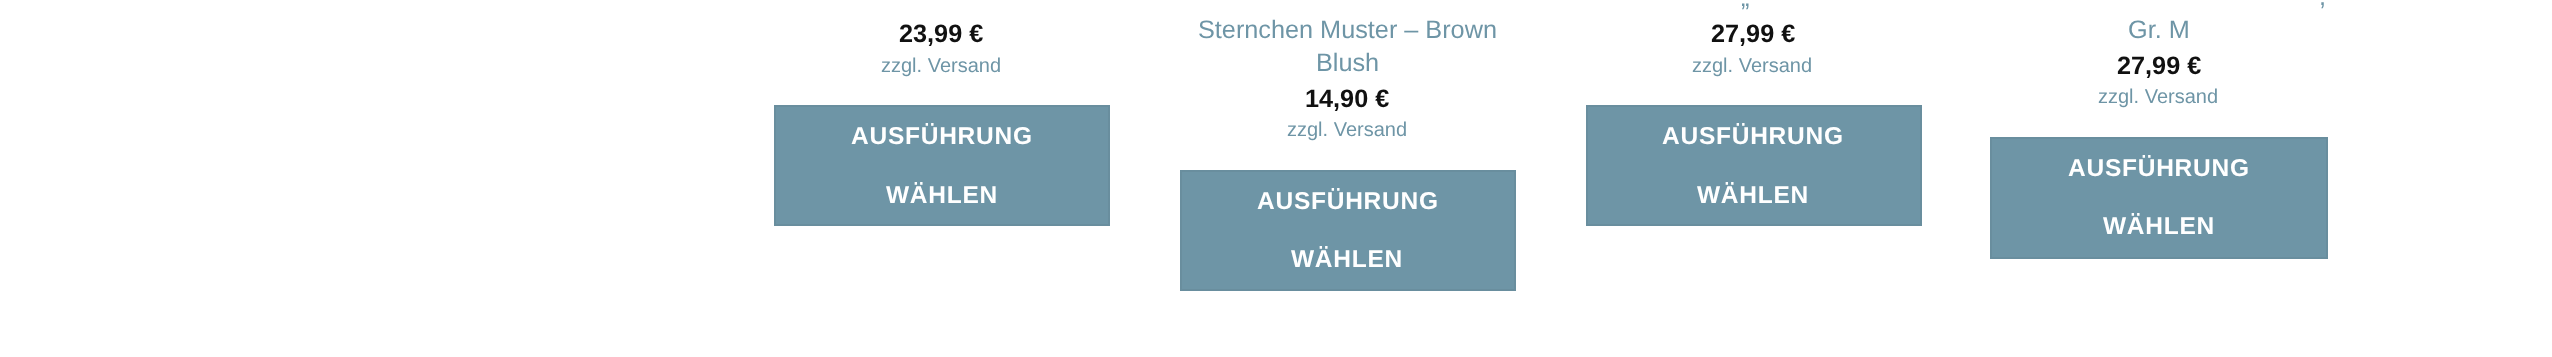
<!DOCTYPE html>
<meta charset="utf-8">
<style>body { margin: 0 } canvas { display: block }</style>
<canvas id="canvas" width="2552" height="357"></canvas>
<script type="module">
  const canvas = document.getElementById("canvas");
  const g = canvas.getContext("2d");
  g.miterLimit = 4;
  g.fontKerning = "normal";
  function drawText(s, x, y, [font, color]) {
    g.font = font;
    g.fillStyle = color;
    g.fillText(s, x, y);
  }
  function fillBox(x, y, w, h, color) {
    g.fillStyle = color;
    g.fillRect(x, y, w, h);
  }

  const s1 = ["bold 25.25px Liberation Sans", "#111111"];
  const s2 = ["20px Liberation Sans", "#6E95A6"];
  const s3 = ["bold 24.5px Liberation Sans", "#FFFFFF"];
  const s4 = ["25.25px Liberation Sans", "#6E95A6"];

  fillBox(0, 0, 2552, 357, "#FFFFFF");
  drawText("23,99 €", 899, 42, s1);
  drawText("zzgl. Versand", 881, 72, s2);
  g.beginPath();
  g.rect(775, 106, 334, 119);
  g.fill();
  g.strokeStyle = "#698E9E";
  g.lineWidth = 2;
  g.stroke();
  g.letterSpacing = "0.75px";
  drawText("AUSFÜHRUNG", 851, 144, s3);
  drawText("WÄHLEN", 886, 203, s3);
  g.letterSpacing = "0px";
  drawText("Sternchen Muster – Brown", 1198, 38, s4);
  drawText("Blush", 1316, 71, s4);
  drawText("14,90 €", 1305, 107, s1);
  drawText("zzgl. Versand", 1287, 136, s2);
  g.beginPath();
  g.rect(1181, 171, 334, 119);
  g.fill();
  g.stroke();
  g.letterSpacing = "0.75px";
  drawText("AUSFÜHRUNG", 1257, 209, s3);
  drawText("WÄHLEN", 1291, 267, s3);
  g.letterSpacing = "0px";
  drawText("„", 1741, 6, s4);
  drawText("27,99 €", 1711, 42, s1);
  drawText("zzgl. Versand", 1692, 72, s2);
  g.beginPath();
  g.rect(1587, 106, 334, 119);
  g.fill();
  g.stroke();
  g.letterSpacing = "0.75px";
  drawText("AUSFÜHRUNG", 1662, 144, s3);
  drawText("WÄHLEN", 1697, 203, s3);
  g.letterSpacing = "0px";
  drawText(",", 2319, 5, s4);
  drawText("Gr. M", 2128, 38, s4);
  drawText("27,99 €", 2117, 74, s1);
  drawText("zzgl. Versand", 2098, 103, s2);
  g.beginPath();
  g.rect(1991, 138, 336, 120);
  g.fill();
  g.stroke();
  g.letterSpacing = "0.75px";
  drawText("AUSFÜHRUNG", 2068, 176, s3);
  drawText("WÄHLEN", 2103, 234, s3);
</script>
